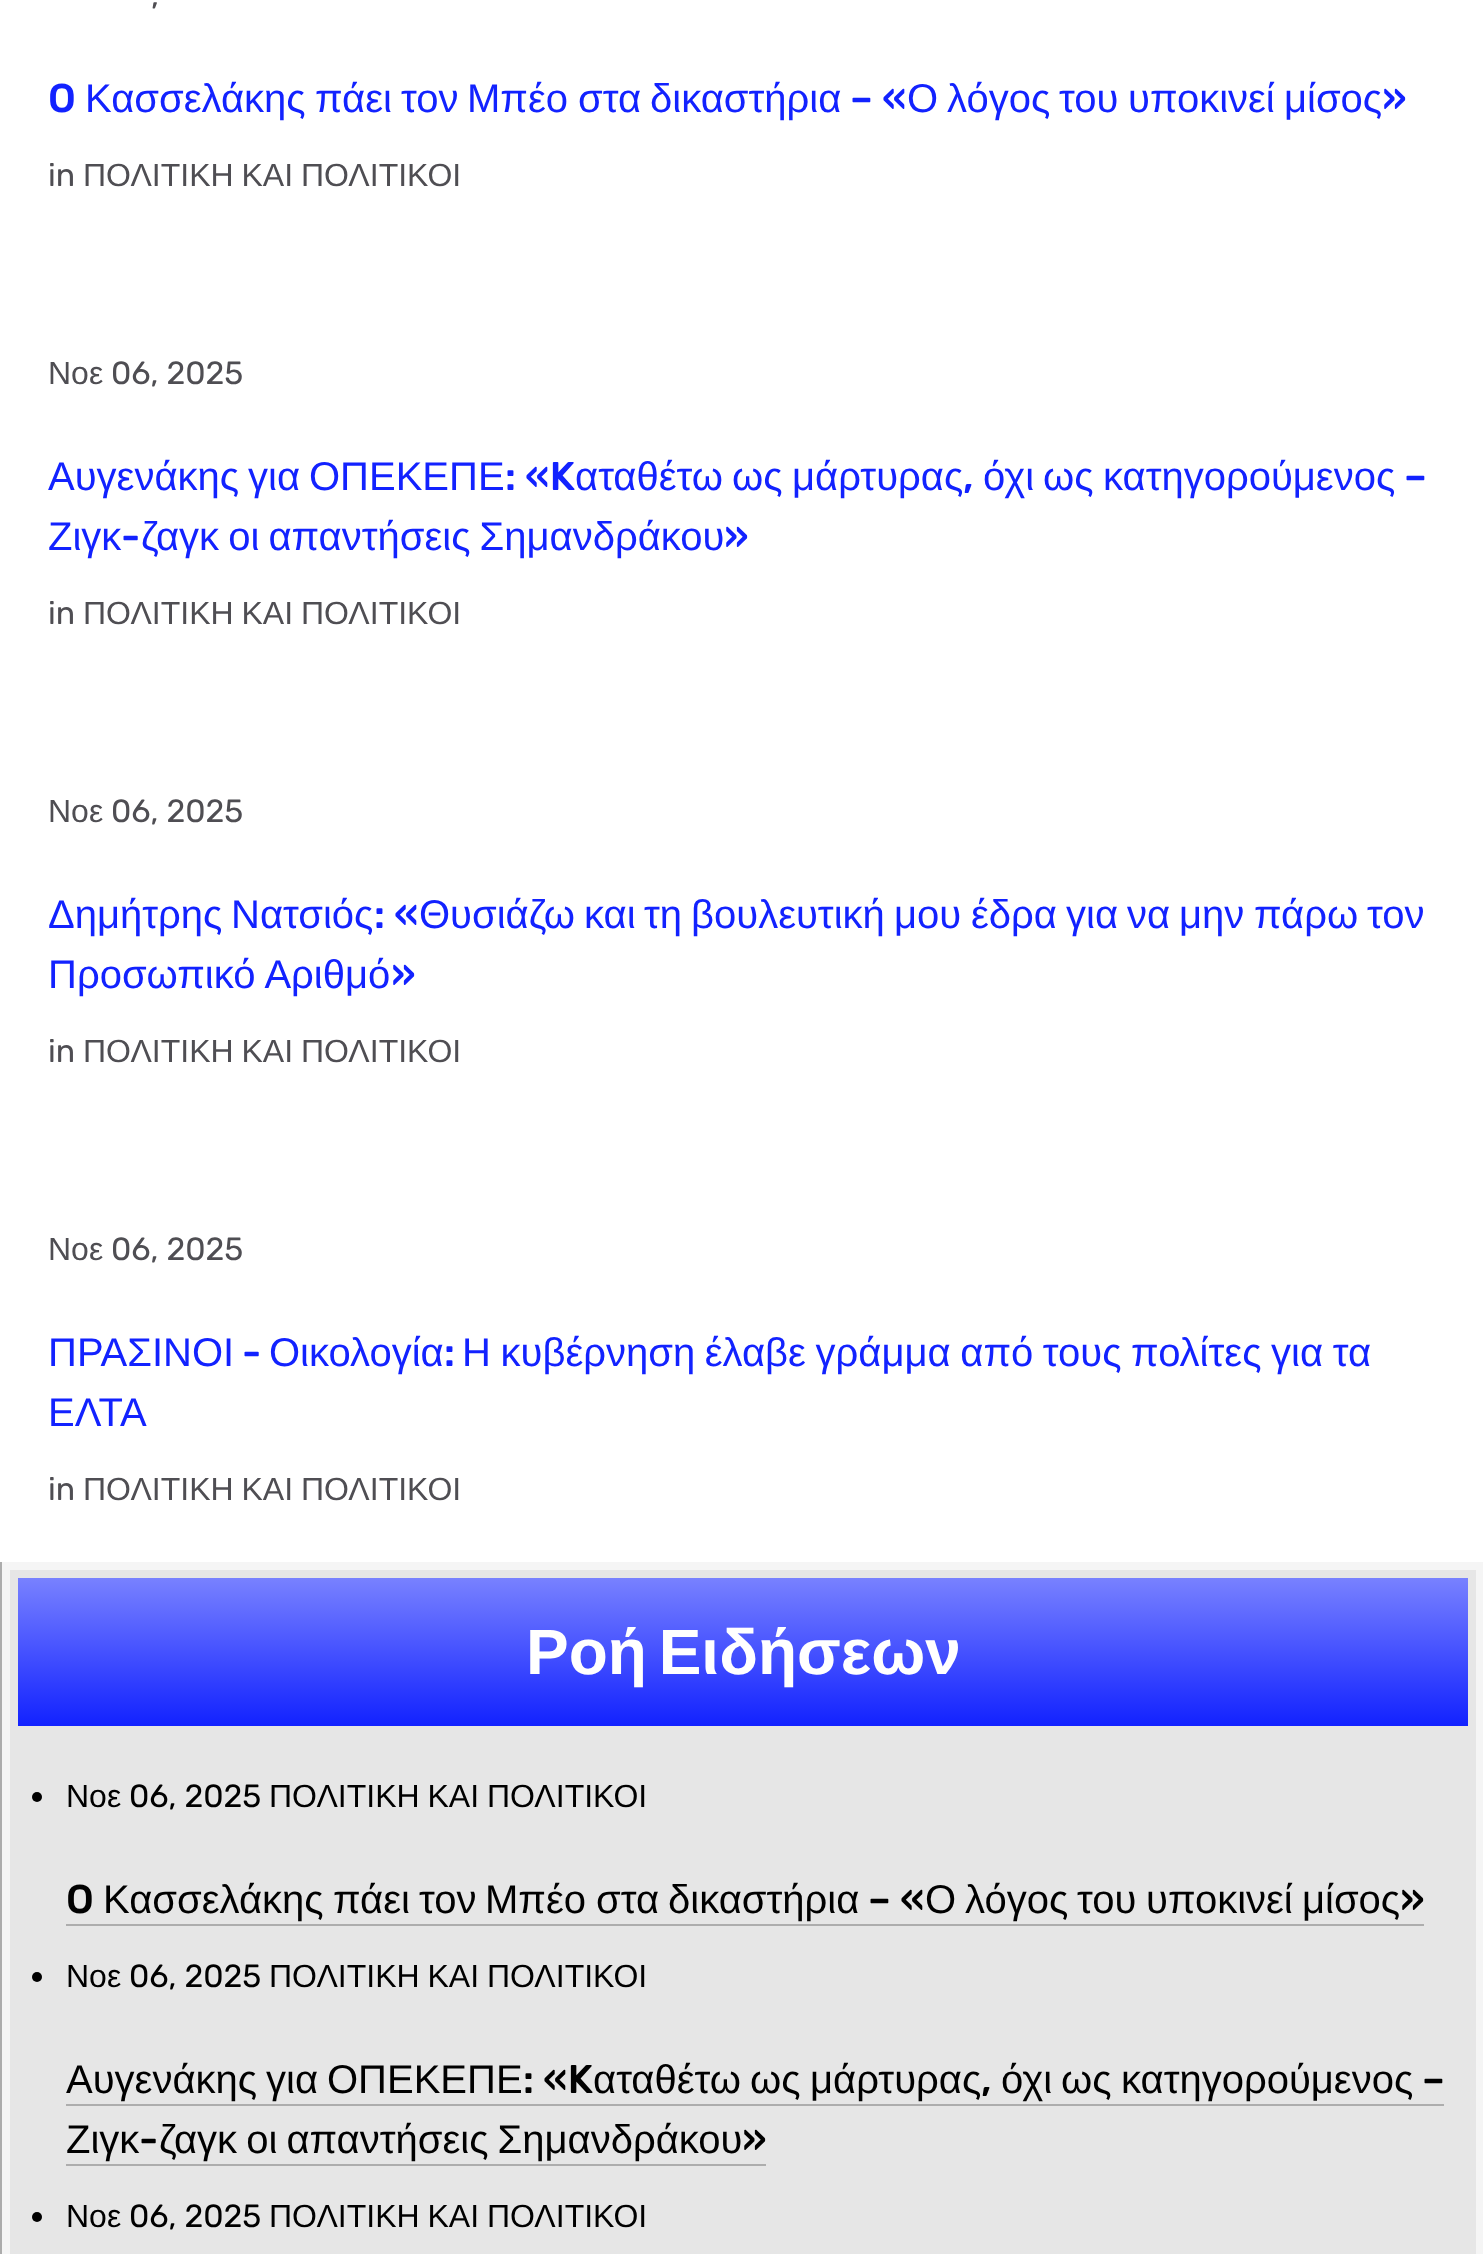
<!DOCTYPE html>
<meta charset="utf-8">
<style>body { margin: 0 } canvas { display: block }</style>
<canvas id="canvas" width="1483" height="2254"></canvas>
<script type="module">
  const canvas = document.getElementById("canvas");
  const g = canvas.getContext("2d");
  g.miterLimit = 4;
  g.fontKerning = "normal";
  function drawText(s, x, y, [font, color]) {
    g.font = font;
    g.fillStyle = color;
    g.fillText(s, x, y);
  }
  function fillBox(x, y, w, h, color) {
    g.fillStyle = color;
    g.fillRect(x, y, w, h);
  }
  let gradient;

  const s1 = ["32px Rubik", "#4F4E53"];
  const s2 = ["500 40px Rubik", "#1222FF"];
  const s3 = ["40px Liberation Sans", "#1222FF"];
  const s4 = ["32px Liberation Sans", "#4F4E53"];
  const s5 = ["bold 64px Liberation Sans", "#FFFFFF"];
  const s6 = ["32px Liberation Sans", "#000000"];
  const s7 = ["32px Rubik", "#000000"];
  const s8 = ["500 40px Rubik", "#000000"];
  const s9 = ["40px Liberation Sans", "#000000"];

  fillBox(0, 0, 1483, 2254, "#FFFFFF");
  drawText(",", 151, 6, s1);
  drawText("O", 48, 112, s2);
  drawText("Κασσελάκης", 85, 112, s3);
  drawText("πάει", 315, 112, s3);
  drawText("τον", 401, 112, s3);
  drawText("Μπέο", 467, 112, s3);
  drawText("στα", 578, 112, s3);
  drawText("δικαστήρια", 650, 112, s3);
  drawText("– «", 850, 112, s2);
  drawText("Ο", 907, 112, s3);
  drawText("λόγος", 947, 112, s3);
  drawText("του", 1059, 112, s3);
  drawText("υποκινεί", 1128, 112, s3);
  drawText("μίσος", 1284, 112, s3);
  drawText("»", 1382, 112, s2);
  drawText("in", 48, 186, s1);
  g.wordSpacing = "-1px";
  drawText("ΠΟΛΙΤΙΚΗ ΚΑΙ ΠΟΛΙΤΙΚΟΙ", 83, 186, s4);
  g.wordSpacing = "0px";
  drawText("Νοε", 48, 384, s4);
  drawText("06, 2025", 111, 384, s1);
  drawText("Αυγενάκης", 48, 490, s3);
  drawText("για", 248, 490, s3);
  drawText("ΟΠΕΚΕΠΕ", 309, 490, s3);
  drawText(": «K", 505, 490, s2);
  drawText("αταθέτω", 575, 490, s3);
  drawText("ως", 732, 490, s3);
  drawText("μάρτυρας", 792, 490, s3);
  drawText("όχι", 983, 490, s3);
  drawText("ως", 1043, 490, s3);
  drawText("κατηγορούμενος", 1103, 490, s3);
  drawText("–", 1404, 490, s2);
  drawText(",", 963, 490, s2);
  drawText("Ζιγκ", 48, 550, s3);
  drawText("-", 121, 550, s2);
  g.wordSpacing = "-2px";
  drawText("ζαγκ οι απαντήσεις Σημανδράκου", 141, 550, s3);
  g.wordSpacing = "0px";
  drawText("»", 724, 550, s2);
  drawText("in", 48, 624, s1);
  g.wordSpacing = "-1px";
  drawText("ΠΟΛΙΤΙΚΗ ΚΑΙ ΠΟΛΙΤΙΚΟΙ", 83, 624, s4);
  g.wordSpacing = "0px";
  drawText("Νοε", 48, 822, s4);
  drawText("06, 2025", 111, 822, s1);
  drawText("Δημήτρης", 48, 928, s3);
  drawText("Νατσιός", 231, 928, s3);
  drawText(": «", 374, 928, s2);
  drawText("Θυσιάζω", 419, 928, s3);
  drawText("και", 584, 928, s3);
  drawText("τη", 644, 928, s3);
  drawText("βουλευτική", 691, 928, s3);
  drawText("μου", 894, 928, s3);
  drawText("έδρα", 971, 928, s3);
  drawText("για", 1066, 928, s3);
  drawText("να", 1127, 928, s3);
  drawText("μην", 1179, 928, s3);
  drawText("πάρω", 1254, 928, s3);
  drawText("τον", 1367, 928, s3);
  drawText("Προσωπικό Αριθμό", 48, 988, s3);
  drawText("»", 391, 988, s2);
  drawText("in", 48, 1062, s1);
  g.wordSpacing = "-1px";
  drawText("ΠΟΛΙΤΙΚΗ ΚΑΙ ΠΟΛΙΤΙΚΟΙ", 83, 1062, s4);
  g.wordSpacing = "0px";
  drawText("Νοε", 48, 1260, s4);
  drawText("06, 2025", 111, 1260, s1);
  drawText("ΠΡΑΣΙΝΟΙ", 48, 1366, s3);
  drawText("-", 242, 1366, s2);
  drawText("Οικολογία", 269, 1366, s3);
  drawText(":", 444, 1366, s2);
  g.wordSpacing = "-1.5px";
  drawText("Η κυβέρνηση έλαβε γράμμα από τους πολίτες για τα", 462, 1366, s3);
  g.wordSpacing = "0px";
  drawText("ΕΛΤΑ", 48, 1426, s3);
  drawText("in", 48, 1500, s1);
  g.wordSpacing = "-1px";
  drawText("ΠΟΛΙΤΙΚΗ ΚΑΙ ΠΟΛΙΤΙΚΟΙ", 83, 1500, s4);
  fillBox(2, 1562, 1481, 692, "#F5F5F5");
  fillBox(0, 1562, 2, 692, "#ACACAC");
  fillBox(10, 1570, 1466, 684, "#E6E6E6");
  gradient = g.createLinearGradient(743, 1726, 743, 1578);
  gradient.addColorStop(0, "#1222FF");
  gradient.addColorStop(1, "#7881FF");
  g.fillStyle = gradient;
  g.fillRect(18, 1578, 1450, 148);
  g.wordSpacing = "-6px";
  drawText("Ροή Ειδήσεων", 526, 1674, s5);
  g.fillStyle = "#000000";
  g.beginPath();
  g.arc(37, 1797, 5, 0, Math.PI * 2);
  g.fill();
  g.wordSpacing = "0px";
  drawText("Νοε", 66, 1807, s6);
  drawText("06, 2025", 129, 1807, s7);
  g.wordSpacing = "-1px";
  drawText("ΠΟΛΙΤΙΚΗ ΚΑΙ ΠΟΛΙΤΙΚΟΙ", 269, 1807, s6);
  g.wordSpacing = "0px";
  drawText("O", 66, 1913, s8);
  drawText("Κασσελάκης", 103, 1913, s9);
  drawText("πάει", 333, 1913, s9);
  drawText("τον", 419, 1913, s9);
  fillBox(66, 1924, 1358, 2, "#ADADAD");
  drawText("Μπέο", 485, 1913, s9);
  drawText("στα", 596, 1913, s9);
  drawText("δικαστήρια", 668, 1913, s9);
  drawText("– «", 868, 1913, s8);
  drawText("Ο", 925, 1913, s9);
  drawText("λόγος", 965, 1913, s9);
  drawText("του", 1077, 1913, s9);
  drawText("υποκινεί", 1146, 1913, s9);
  drawText("μίσος", 1302, 1913, s9);
  drawText("»", 1400, 1913, s8);
  g.beginPath();
  g.arc(37, 1977, 5, 0, Math.PI * 2);
  g.fill();
  drawText("Νοε", 66, 1987, s6);
  drawText("06, 2025", 129, 1987, s7);
  g.wordSpacing = "-1px";
  drawText("ΠΟΛΙΤΙΚΗ ΚΑΙ ΠΟΛΙΤΙΚΟΙ", 269, 1987, s6);
  g.wordSpacing = "0px";
  drawText("Αυγενάκης", 66, 2093, s9);
  drawText("για", 266, 2093, s9);
  drawText("ΟΠΕΚΕΠΕ", 327, 2093, s9);
  drawText(": «K", 523, 2093, s8);
  drawText("αταθέτω", 593, 2093, s9);
  drawText("ως", 750, 2093, s9);
  drawText("μάρτυρας", 810, 2093, s9);
  drawText("όχι", 1001, 2093, s9);
  drawText("ως", 1061, 2093, s9);
  drawText("κατηγορούμενος", 1121, 2093, s9);
  drawText("–", 1422, 2093, s8);
  drawText(",", 981, 2093, s8);
  fillBox(66, 2104, 1378, 2, "#ADADAD");
  drawText("Ζιγκ", 66, 2153, s9);
  fillBox(66, 2164, 700, 2, "#ADADAD");
  drawText("-", 139, 2153, s8);
  g.wordSpacing = "-2px";
  drawText("ζαγκ οι απαντήσεις Σημανδράκου", 159, 2153, s9);
  g.wordSpacing = "0px";
  drawText("»", 742, 2153, s8);
  g.beginPath();
  g.arc(37, 2217, 5, 0, Math.PI * 2);
  g.fill();
  drawText("Νοε", 66, 2227, s6);
  drawText("06, 2025", 129, 2227, s7);
  g.wordSpacing = "-1px";
  drawText("ΠΟΛΙΤΙΚΗ ΚΑΙ ΠΟΛΙΤΙΚΟΙ", 269, 2227, s6);
</script>
